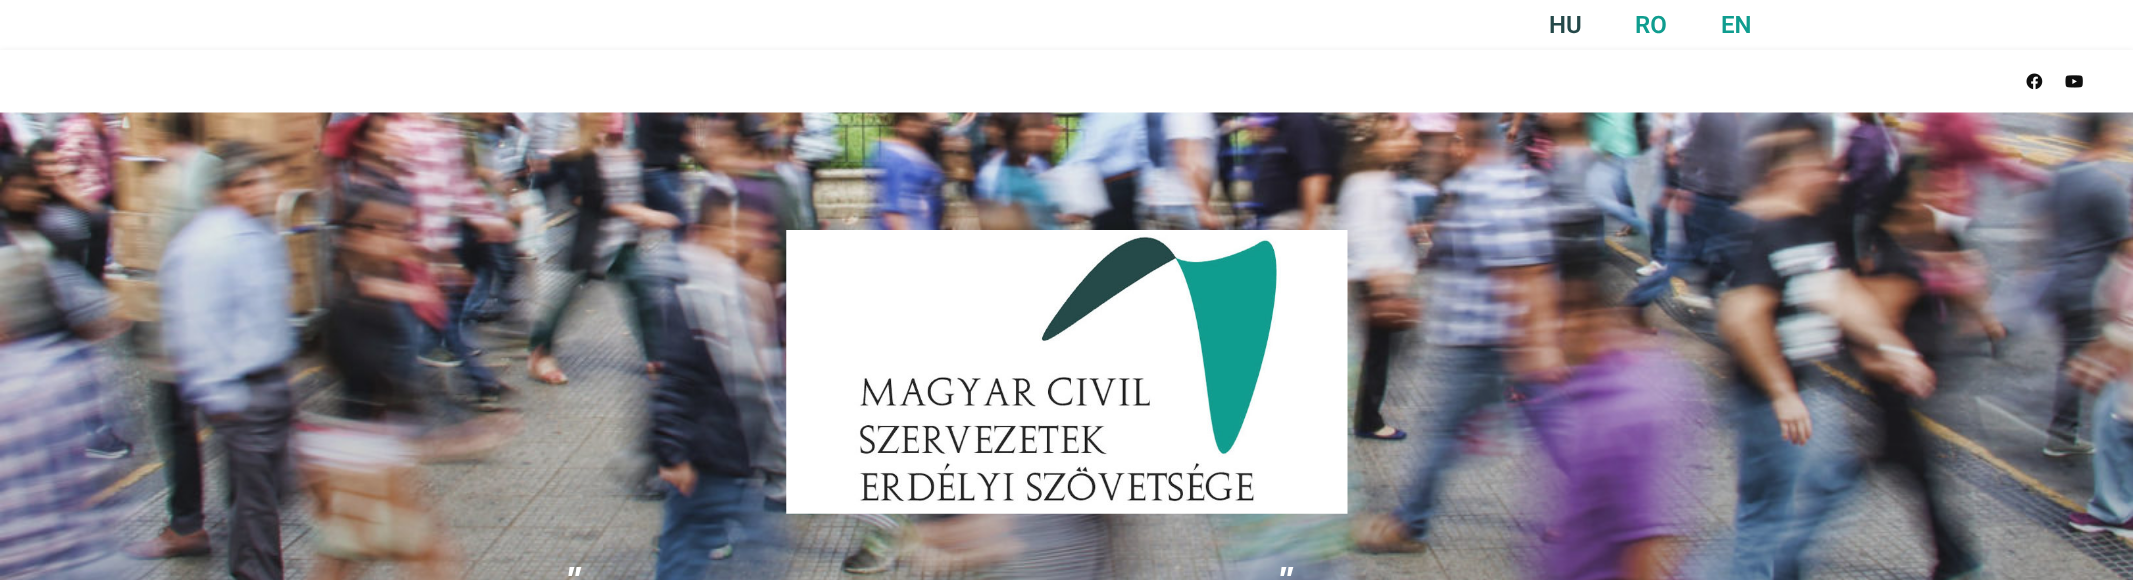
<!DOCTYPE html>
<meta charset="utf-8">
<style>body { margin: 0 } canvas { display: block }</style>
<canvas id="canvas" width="2133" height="580"></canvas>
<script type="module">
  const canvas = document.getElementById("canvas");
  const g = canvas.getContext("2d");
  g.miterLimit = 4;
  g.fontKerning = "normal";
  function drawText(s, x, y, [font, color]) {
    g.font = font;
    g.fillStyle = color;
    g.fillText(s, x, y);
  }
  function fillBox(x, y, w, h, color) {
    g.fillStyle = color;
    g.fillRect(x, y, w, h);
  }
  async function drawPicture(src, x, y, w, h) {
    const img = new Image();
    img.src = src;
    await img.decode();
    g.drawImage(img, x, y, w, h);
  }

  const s1 = ["600 24px Roboto", "#244849"];
  const s2 = ["600 24px Roboto", "#0F9D8F"];
  const s3 = ["italic bold 35px Open Sans", "#FFFFFF"];

  fillBox(0, 0, 2133, 580, "#FFFFFF");
  drawText("HU", 1549, 33, s1);
  drawText("RO", 1635, 33, s2);
  drawText("EN", 1721, 33, s2);
  g.fillStyle = "rgba(15, 15, 15, 0.1)";
  g.filter = "blur(3px)";
  g.beginPath();
  g.rect(0, 51, 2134, 63);
  g.fill();
  g.filter = "none";
  fillBox(0, 50, 2133, 63, "#FFFFFF");
  await drawPicture("pic1.png", 2026, 73, 17, 17);
  await drawPicture("pic2.png", 2065, 75, 18, 13);
  await drawPicture("pic3.png", 0, 112, 2133, 468);
  await drawPicture("pic4.png", 786, 230, 562, 284);
  drawText("\"", 565, 592, s3);
  drawText("\"", 1277, 592, s3);
</script>
